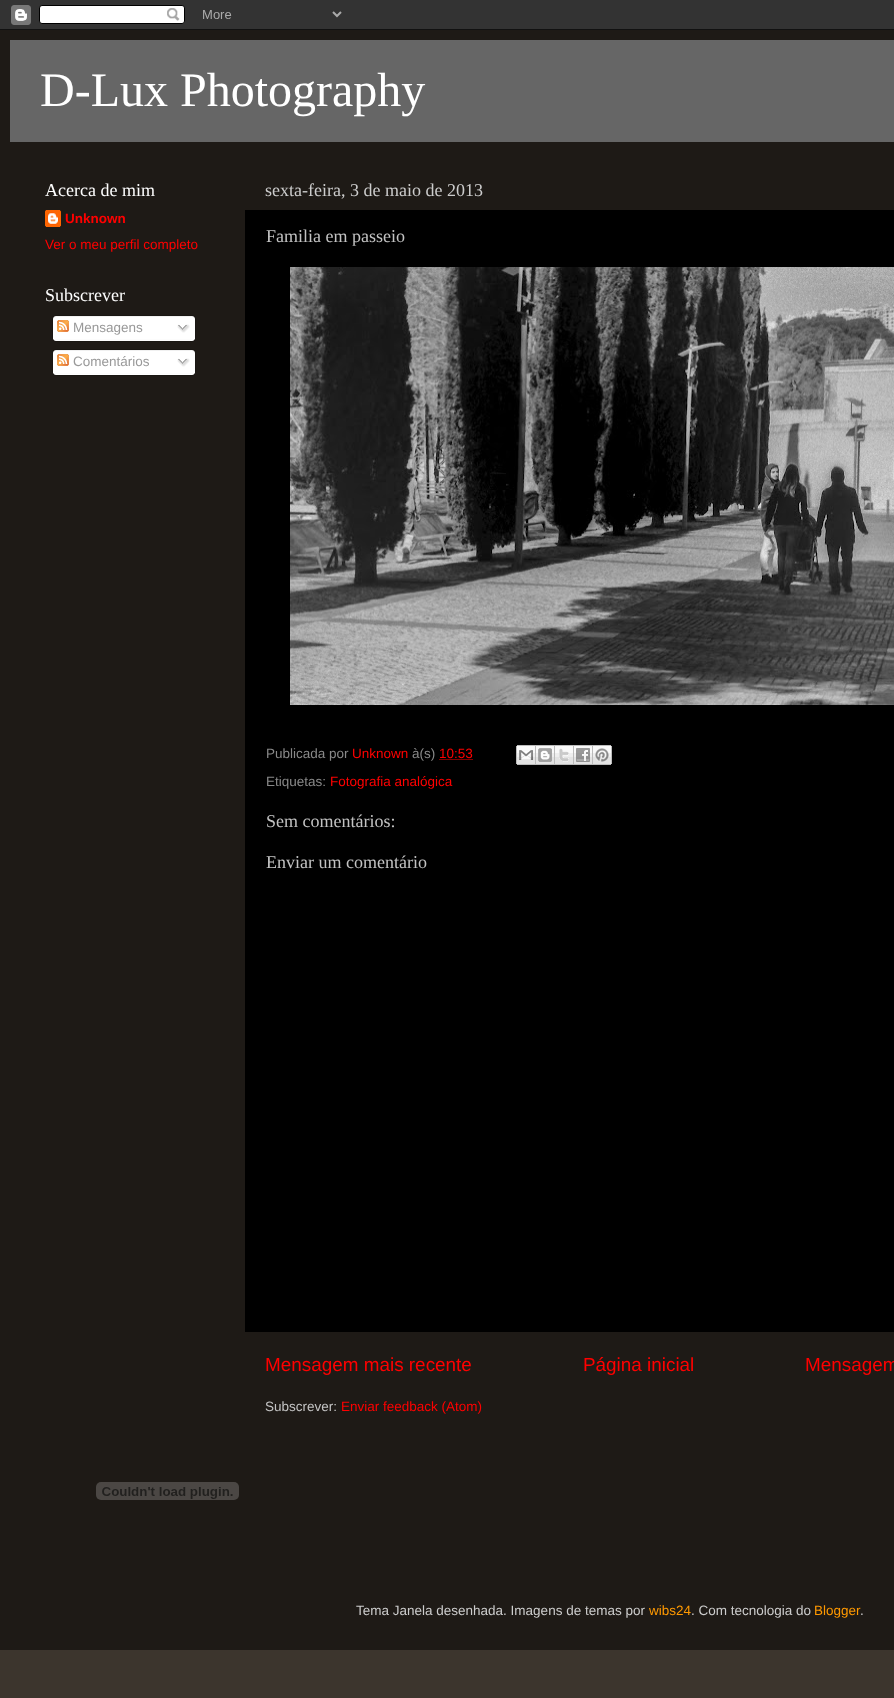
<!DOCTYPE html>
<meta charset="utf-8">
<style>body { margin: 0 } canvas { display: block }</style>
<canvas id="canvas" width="894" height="1698"></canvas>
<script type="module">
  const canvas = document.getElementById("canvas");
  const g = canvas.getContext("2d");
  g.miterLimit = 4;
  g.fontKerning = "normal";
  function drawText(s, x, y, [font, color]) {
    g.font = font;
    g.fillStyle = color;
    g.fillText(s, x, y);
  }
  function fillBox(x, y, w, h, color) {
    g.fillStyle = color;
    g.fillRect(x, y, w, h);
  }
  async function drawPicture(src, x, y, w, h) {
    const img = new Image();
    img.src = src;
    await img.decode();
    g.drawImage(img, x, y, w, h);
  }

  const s1 = ["48px Liberation Serif", "#FFFFFF"];
  const s2 = ["18px Liberation Serif", "#FFFFFF"];
  const s3 = ["bold 13.5px Liberation Sans", "#FF0000"];
  const s4 = ["13.5px Liberation Sans", "#FF0000"];
  const s5 = ["13.5px Liberation Sans", "#999999"];
  const s6 = ["18px Liberation Serif", "#CCCCCC"];
  const s7 = ["18px Liberation Serif", "#C3C3C3"];
  const s8 = ["13.5px Liberation Sans", "#898989"];
  const s9 = ["18.9px Liberation Sans", "#FF0000"];
  const s10 = ["13.5px Liberation Sans", "#C3C3C3"];
  const s11 = ["13.5px Liberation Sans", "#CCCCCC"];
  const s12 = ["13.5px Liberation Sans", "#FF9900"];

  fillBox(0, 0, 894, 1698, "#3C352D");
  await drawPicture("pic1.png", 0, 0, 894, 30);
  fillBox(0, 30, 894, 1620, "#1E1A16");
  fillBox(10, 40, 884, 102, "#666666");
  drawText("D-Lux Photography", 40, 106, s1);
  drawText("Acerca de mim", 45, 196, s2);
  await drawPicture("pic2.png", 45, 210, 16, 17);
  drawText("Unknown", 65, 223, s3);
  drawText("Ver o meu perfil completo", 45, 249, s4);
  drawText("Subscrever", 45, 301, s2);
  await drawPicture("pic3.png", 52, 315, 144, 24);
  await drawPicture("pic4.png", 57, 320, 12, 12);
  drawText("Mensagens", 73, 332, s5);
  await drawPicture("pic5.png", 177, 324, 13, 9);
  await drawPicture("pic6.png", 53, 339, 142, 3);
  await drawPicture("pic3.png", 52, 349, 144, 24);
  await drawPicture("pic4.png", 57, 354, 12, 12);
  drawText("Comentários", 73, 366, s5);
  await drawPicture("pic5.png", 177, 358, 13, 9);
  await drawPicture("pic6.png", 53, 373, 142, 3);
  drawText("sexta-feira, 3 de maio de 2013", 265, 196, s6);
  fillBox(245, 210, 649, 1122, "#000000");
  drawText("Familia em passeio", 266, 242, s7);
  await drawPicture("pic7.png", 290, 267, 604, 438);
  drawText("Publicada por", 266, 758, s8);
  drawText("Unknown", 352, 758, s4);
  drawText("à(s)", 412, 758, s8);
  drawText("10:53", 439, 758, s4);
  g.beginPath();
  g.moveTo(439.5, 759.5);
  g.lineTo(473, 759.5);
  g.strokeStyle = "#FF0000";
  g.setLineDash([1, 1]);
  g.stroke();
  await drawPicture("pic8.png", 516, 745, 20, 20);
  await drawPicture("pic9.png", 536, 745, 19, 20);
  await drawPicture("pic10.png", 555, 745, 19, 20);
  await drawPicture("pic11.png", 574, 745, 19, 20);
  await drawPicture("pic12.png", 593, 745, 19, 20);
  drawText("Etiquetas:", 266, 786, s8);
  drawText("Fotografia analógica", 330, 786, s4);
  drawText("Sem comentários:", 266, 827, s7);
  drawText("Enviar um comentário", 266, 868, s7);
  drawText("Mensagem mais recente", 265, 1371, s9);
  drawText("Página inicial", 583, 1371, s9);
  drawText("Mensagem", 805, 1371, s9);
  drawText("Subscrever:", 265, 1411, s10);
  drawText("Enviar feedback (Atom)", 341, 1411, s4);
  await drawPicture("pic13.png", 96, 1482, 143, 18);
  drawText("Tema Janela desenhada. Imagens de temas por", 356, 1615, s11);
  drawText("wibs24", 649, 1615, s12);
  drawText(". Com tecnologia do", 691, 1615, s11);
  drawText("Blogger", 814, 1615, s12);
  drawText(".", 860, 1615, s11);
</script>
